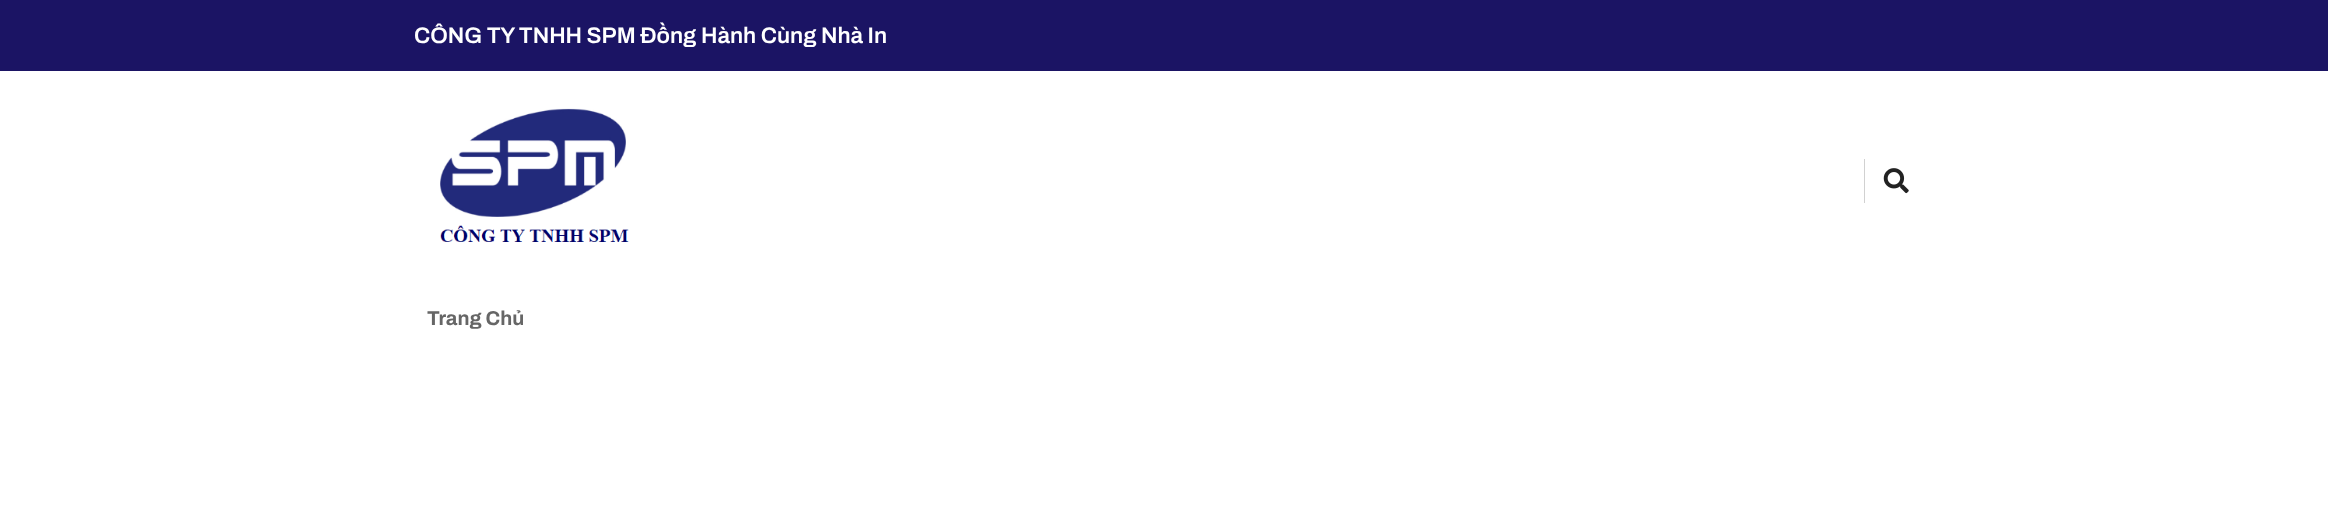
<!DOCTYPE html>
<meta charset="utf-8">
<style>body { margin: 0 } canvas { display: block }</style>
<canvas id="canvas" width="2328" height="528"></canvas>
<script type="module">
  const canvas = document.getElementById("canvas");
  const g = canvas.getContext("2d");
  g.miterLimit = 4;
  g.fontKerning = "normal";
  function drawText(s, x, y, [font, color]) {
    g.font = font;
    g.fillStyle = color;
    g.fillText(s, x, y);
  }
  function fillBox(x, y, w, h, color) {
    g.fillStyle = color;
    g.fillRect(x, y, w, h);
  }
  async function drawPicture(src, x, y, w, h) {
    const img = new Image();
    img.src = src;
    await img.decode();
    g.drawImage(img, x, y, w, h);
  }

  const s1 = ["600 22.5px Archivo", "#FFFFFF"];
  const s2 = ["bold 20px Archivo", "#666666"];

  fillBox(0, 0, 2328, 528, "#FFFFFF");
  fillBox(0, 0, 2328, 71, "#1B1464");
  drawText("CÔNG TY TNHH SPM Đồng Hành Cùng Nhà In", 414, 43, s1);
  await drawPicture("pic1.png", 440, 108, 189, 134);
  fillBox(1864, 159, 1, 44, "#D1D1D1");
  await drawPicture("pic2.png", 1883, 168, 26, 26);
  drawText("Trang Chủ", 427, 325, s2);
</script>
